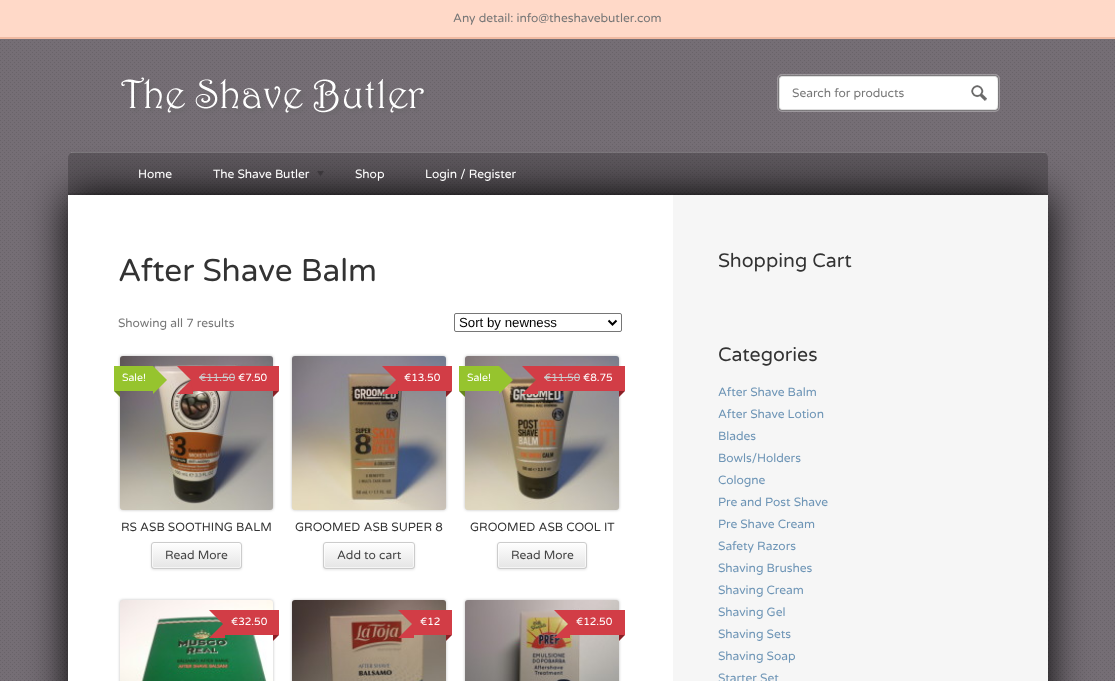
<!DOCTYPE html>
<meta charset="utf-8">
<style>body { margin: 0 } canvas { display: block }</style>
<canvas id="canvas" width="1115" height="681"></canvas>
<script type="module">
  const canvas = document.getElementById("canvas");
  const g = canvas.getContext("2d");
  g.miterLimit = 4;
  g.fontKerning = "normal";
  function drawText(s, x, y, [font, color]) {
    g.font = font;
    g.fillStyle = color;
    g.fillText(s, x, y);
  }
  function fillBox(x, y, w, h, color) {
    g.fillStyle = color;
    g.fillRect(x, y, w, h);
  }
  async function drawPicture(src, x, y, w, h) {
    const img = new Image();
    img.src = src;
    await img.decode();
    g.drawImage(img, x, y, w, h);
  }
  let gradient;

  const s1 = ["12px Varela Round", "#777777"];
  const s2 = ["12px Varela Round", "#FFFFFF"];
  const s3 = ["31.5px Varela Round", "#333333"];
  const s4 = ["13.25px Liberation Sans", "#000000"];
  const s5 = ["10.5px Varela Round", "#FFFFFF"];
  const s6 = ["10.5px Varela Round", "#CCCCCC"];
  const s7 = ["12px Varela Round", "#333333"];
  const s8 = ["12px Varela Round", "#444444"];
  const s9 = ["19.5px Varela Round", "#333333"];
  const s10 = ["12px Varela Round", "#6E95B6"];

  fillBox(0, 0, 1115, 681, "#756E75");
  fillBox(0, 0, 1115, 37, "#FFD9C8");
  fillBox(0, 37, 1115, 2, "#F0BAA2");
  drawText("Any detail: info@theshavebutler.com", 453, 22, s1);
  await drawPicture("pic1.png", 0, 40, 1115, 641);
  await drawPicture("pic2.png", 121, 77, 306, 38);
  g.beginPath();
  g.roundRect(778.5, 75.5, 220, 35, 3.5);
  g.strokeStyle = "rgba(0, 0, 0, 0.4)";
  g.stroke();
  g.beginPath();
  g.roundRect(778, 75, 221, 36, 4);
  g.strokeStyle = "rgba(255, 255, 255, 0.3)";
  g.lineWidth = 2;
  g.stroke();
  g.fillStyle = "#FFFFFF";
  g.beginPath();
  g.roundRect(779.5, 76.5, 218, 33, 2.5);
  g.fill();
  g.strokeStyle = "#DDDDDD";
  g.lineWidth = 1;
  g.stroke();
  drawText("Search for products", 792, 97, s1);
  g.beginPath();
  g.roundRect(960.5, 79.5, 37, 27, 2.5);
  g.strokeStyle = "rgba(255, 255, 255, 0.6)";
  g.stroke();
  await drawPicture("pic3.png", 971, 85, 16, 16);
  g.fillStyle = "#000000";
  g.filter = "blur(20px)";
  g.beginPath();
  g.rect(68, 195, 980, 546);
  g.fill();
  g.filter = "none";
  g.fillStyle = "rgba(0, 0, 0, 0.2)";
  g.beginPath();
  g.roundRect(68, 152, 980, 43, [6, 6, 0, 0]);
  g.fill();
  fillBox(68, 193, 980, 2, "rgba(0, 0, 0, 0.1)");
  fillBox(71, 152, 974, 1, "rgba(255, 255, 255, 0.2)");
  drawText("Home", 138, 178, s2);
  drawText("The Shave Butler", 213, 178, s2);
  await drawPicture("pic4.png", 317, 171, 7, 5);
  drawText("Shop", 355, 178, s2);
  drawText("Login / Register", 425, 178, s2);
  fillBox(68, 195, 605, 486, "#FFFFFF");
  fillBox(673, 195, 375, 486, "#F6F6F6");
  drawText("After Shave Balm", 118, 281, s3);
  drawText("Showing all 7 results", 118, 327, s1);
  g.beginPath();
  g.roundRect(454.5, 313.5, 167, 18, 1.5);
  g.strokeStyle = "#767676";
  g.stroke();
  g.beginPath();
  g.moveTo(608.5, 320.5);
  g.lineTo(612.5, 324.5);
  g.lineTo(616.5, 320.5);
  g.strokeStyle = "#000000";
  g.lineWidth = 2;
  g.stroke();
  drawText("Sort by newness", 459, 327, s4);
  g.fillStyle = "rgba(0, 0, 0, 0.25)";
  g.filter = "blur(1.5px)";
  g.beginPath();
  g.roundRect(120, 356, 153, 154, 3);
  g.fill();
  g.filter = "none";
  await drawPicture("pic5.png", 120, 356, 153, 154);
  fillBox(114, 366, 39, 25, "#96C42E");
  drawText("Sale!", 122, 381, s5);
  g.fillStyle = "#96C42E";
  g.beginPath();
  g.moveTo(153, 394);
  g.lineTo(153, 366);
  g.lineTo(167, 380);
  g.closePath();
  g.fill();
  g.fillStyle = "#67861F";
  g.beginPath();
  g.moveTo(114, 391);
  g.lineTo(120, 391);
  g.lineTo(120, 397);
  g.closePath();
  g.fill();
  fillBox(193, 366, 86, 25, "#D23D46");
  g.beginPath();
  g.moveTo(177, 366);
  g.lineTo(193, 366);
  g.lineTo(191, 380);
  g.closePath();
  g.fill();
  fillBox(191, 366, 2, 28, "#D23D46");
  g.beginPath();
  g.moveTo(193, 394);
  g.lineTo(177, 394);
  g.lineTo(191, 380);
  g.closePath();
  g.fill();
  drawText("€11.50", 199, 381, s6);
  fillBox(199, 377, 36, 1, "#CCCCCC");
  drawText("€7.50", 238, 381, s5);
  g.fillStyle = "#892026";
  g.beginPath();
  g.moveTo(273, 391);
  g.lineTo(279, 391);
  g.lineTo(273, 397);
  g.closePath();
  g.fill();
  drawText("RS ASB SOOTHING BALM", 121, 531, s7);
  g.fillStyle = "rgba(0, 0, 0, 0.1)";
  g.filter = "blur(1px)";
  g.beginPath();
  g.roundRect(151, 543, 91, 27, 3);
  g.fill();
  g.filter = "none";
  g.save();
  g.beginPath();
  g.roundRect(151, 542, 91, 27, 3);
  g.clip();
  gradient = g.createLinearGradient(197, 543, 197, 568);
  gradient.addColorStop(0, "#FEFEFE");
  gradient.addColorStop(1, "#E5E5E5");
  g.fillStyle = gradient;
  g.fillRect(151, 543, 91, 25);
  g.restore();
  g.beginPath();
  g.roundRect(152.5, 543.5, 88, 24, 1.5);
  g.strokeStyle = "rgba(255, 255, 255, 0.6)";
  g.lineWidth = 1;
  g.stroke();
  g.beginPath();
  g.roundRect(151.5, 542.5, 90, 26, 2.5);
  g.strokeStyle = "#CCCCCC";
  g.stroke();
  drawText("Read More", 165, 559, s8);
  g.fillStyle = "rgba(0, 0, 0, 0.25)";
  g.filter = "blur(1.5px)";
  g.beginPath();
  g.roundRect(292, 356, 154, 154, 3);
  g.fill();
  g.filter = "none";
  await drawPicture("pic6.png", 292, 356, 154, 154);
  fillBox(398, 366, 54, 25, "#D23D46");
  g.beginPath();
  g.moveTo(382, 366);
  g.lineTo(398, 366);
  g.lineTo(396, 380);
  g.closePath();
  g.fill();
  fillBox(396, 366, 2, 28, "#D23D46");
  g.beginPath();
  g.moveTo(398, 394);
  g.lineTo(382, 394);
  g.lineTo(396, 380);
  g.closePath();
  g.fill();
  drawText("€13.50", 404, 381, s5);
  g.fillStyle = "#892026";
  g.beginPath();
  g.moveTo(446, 391);
  g.lineTo(452, 391);
  g.lineTo(446, 397);
  g.closePath();
  g.fill();
  drawText("GROOMED ASB SUPER 8", 295, 531, s7);
  g.fillStyle = "rgba(0, 0, 0, 0.1)";
  g.filter = "blur(1px)";
  g.beginPath();
  g.roundRect(323, 543, 92, 27, 3);
  g.fill();
  g.filter = "none";
  g.save();
  g.beginPath();
  g.roundRect(323, 542, 92, 27, 3);
  g.clip();
  gradient = g.createLinearGradient(369, 543, 369, 568);
  gradient.addColorStop(0, "#FEFEFE");
  gradient.addColorStop(1, "#E5E5E5");
  g.fillStyle = gradient;
  g.fillRect(323, 543, 92, 25);
  g.restore();
  g.beginPath();
  g.roundRect(324.5, 543.5, 89, 24, 1.5);
  g.strokeStyle = "rgba(255, 255, 255, 0.6)";
  g.stroke();
  g.beginPath();
  g.roundRect(323.5, 542.5, 91, 26, 2.5);
  g.strokeStyle = "#CCCCCC";
  g.stroke();
  drawText("Add to cart", 337, 559, s8);
  g.fillStyle = "rgba(0, 0, 0, 0.25)";
  g.filter = "blur(1.5px)";
  g.beginPath();
  g.roundRect(465, 356, 154, 154, 3);
  g.fill();
  g.filter = "none";
  await drawPicture("pic7.png", 465, 356, 154, 154);
  fillBox(459, 366, 40, 25, "#96C42E");
  drawText("Sale!", 467, 381, s5);
  g.fillStyle = "#96C42E";
  g.beginPath();
  g.moveTo(499, 394);
  g.lineTo(499, 366);
  g.lineTo(513, 380);
  g.closePath();
  g.fill();
  g.fillStyle = "#67861F";
  g.beginPath();
  g.moveTo(459, 391);
  g.lineTo(465, 391);
  g.lineTo(465, 397);
  g.closePath();
  g.fill();
  fillBox(538, 366, 87, 25, "#D23D46");
  g.beginPath();
  g.moveTo(522, 366);
  g.lineTo(538, 366);
  g.lineTo(536, 380);
  g.closePath();
  g.fill();
  fillBox(536, 366, 2, 28, "#D23D46");
  g.beginPath();
  g.moveTo(538, 394);
  g.lineTo(522, 394);
  g.lineTo(536, 380);
  g.closePath();
  g.fill();
  drawText("€11.50", 544, 381, s6);
  fillBox(544, 377, 36, 1, "#CCCCCC");
  drawText("€8.75", 583, 381, s5);
  g.fillStyle = "#892026";
  g.beginPath();
  g.moveTo(619, 391);
  g.lineTo(625, 391);
  g.lineTo(619, 397);
  g.closePath();
  g.fill();
  drawText("GROOMED ASB COOL IT", 470, 531, s7);
  g.fillStyle = "rgba(0, 0, 0, 0.1)";
  g.filter = "blur(1px)";
  g.beginPath();
  g.roundRect(497, 543, 90, 27, 3);
  g.fill();
  g.filter = "none";
  g.save();
  g.beginPath();
  g.roundRect(497, 542, 90, 27, 3);
  g.clip();
  gradient = g.createLinearGradient(542, 543, 542, 568);
  gradient.addColorStop(0, "#FEFEFE");
  gradient.addColorStop(1, "#E5E5E5");
  g.fillStyle = gradient;
  g.fillRect(497, 543, 90, 25);
  g.restore();
  g.beginPath();
  g.roundRect(498.5, 543.5, 87, 24, 1.5);
  g.strokeStyle = "rgba(255, 255, 255, 0.6)";
  g.stroke();
  g.beginPath();
  g.roundRect(497.5, 542.5, 89, 26, 2.5);
  g.strokeStyle = "#CCCCCC";
  g.stroke();
  drawText("Read More", 511, 559, s8);
  g.fillStyle = "rgba(0, 0, 0, 0.25)";
  g.filter = "blur(1.5px)";
  g.beginPath();
  g.roundRect(120, 600, 153, 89, 3);
  g.fill();
  g.filter = "none";
  await drawPicture("pic8.png", 120, 600, 153, 81);
  fillBox(225, 610, 54, 25, "#D23D46");
  g.beginPath();
  g.moveTo(209, 610);
  g.lineTo(225, 610);
  g.lineTo(223, 624);
  g.closePath();
  g.fill();
  fillBox(223, 610, 2, 28, "#D23D46");
  g.beginPath();
  g.moveTo(225, 638);
  g.lineTo(209, 638);
  g.lineTo(223, 624);
  g.closePath();
  g.fill();
  drawText("€32.50", 231, 625, s5);
  g.fillStyle = "#892026";
  g.beginPath();
  g.moveTo(273, 635);
  g.lineTo(279, 635);
  g.lineTo(273, 641);
  g.closePath();
  g.fill();
  g.fillStyle = "rgba(0, 0, 0, 0.25)";
  g.filter = "blur(1.5px)";
  g.beginPath();
  g.roundRect(292, 600, 154, 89, 3);
  g.fill();
  g.filter = "none";
  await drawPicture("pic9.png", 292, 600, 154, 81);
  fillBox(414, 610, 38, 25, "#D23D46");
  g.beginPath();
  g.moveTo(398, 610);
  g.lineTo(414, 610);
  g.lineTo(412, 624);
  g.closePath();
  g.fill();
  fillBox(412, 610, 2, 28, "#D23D46");
  g.beginPath();
  g.moveTo(414, 638);
  g.lineTo(398, 638);
  g.lineTo(412, 624);
  g.closePath();
  g.fill();
  drawText("€12", 420, 625, s5);
  g.fillStyle = "#892026";
  g.beginPath();
  g.moveTo(446, 635);
  g.lineTo(452, 635);
  g.lineTo(446, 641);
  g.closePath();
  g.fill();
  g.fillStyle = "rgba(0, 0, 0, 0.25)";
  g.filter = "blur(1.5px)";
  g.beginPath();
  g.roundRect(465, 600, 154, 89, 3);
  g.fill();
  g.filter = "none";
  await drawPicture("pic10.png", 465, 600, 154, 81);
  fillBox(570, 610, 55, 25, "#D23D46");
  g.beginPath();
  g.moveTo(554, 610);
  g.lineTo(570, 610);
  g.lineTo(568, 624);
  g.closePath();
  g.fill();
  fillBox(568, 610, 2, 28, "#D23D46");
  g.beginPath();
  g.moveTo(570, 638);
  g.lineTo(554, 638);
  g.lineTo(568, 624);
  g.closePath();
  g.fill();
  drawText("€12.50", 576, 625, s5);
  g.fillStyle = "#892026";
  g.beginPath();
  g.moveTo(619, 635);
  g.lineTo(625, 635);
  g.lineTo(619, 641);
  g.closePath();
  g.fill();
  drawText("Shopping Cart", 718, 267, s9);
  drawText("Categories", 718, 361, s9);
  drawText("After Shave Balm", 718, 396, s10);
  drawText("After Shave Lotion", 718, 418, s10);
  drawText("Blades", 718, 440, s10);
  drawText("Bowls/Holders", 718, 462, s10);
  drawText("Cologne", 718, 484, s10);
  drawText("Pre and Post Shave", 718, 506, s10);
  drawText("Pre Shave Cream", 718, 528, s10);
  drawText("Safety Razors", 718, 550, s10);
  drawText("Shaving Brushes", 718, 572, s10);
  drawText("Shaving Cream", 718, 594, s10);
  drawText("Shaving Gel", 718, 616, s10);
  drawText("Shaving Sets", 718, 638, s10);
  drawText("Shaving Soap", 718, 660, s10);
  drawText("Starter Set", 718, 682, s10);
</script>
